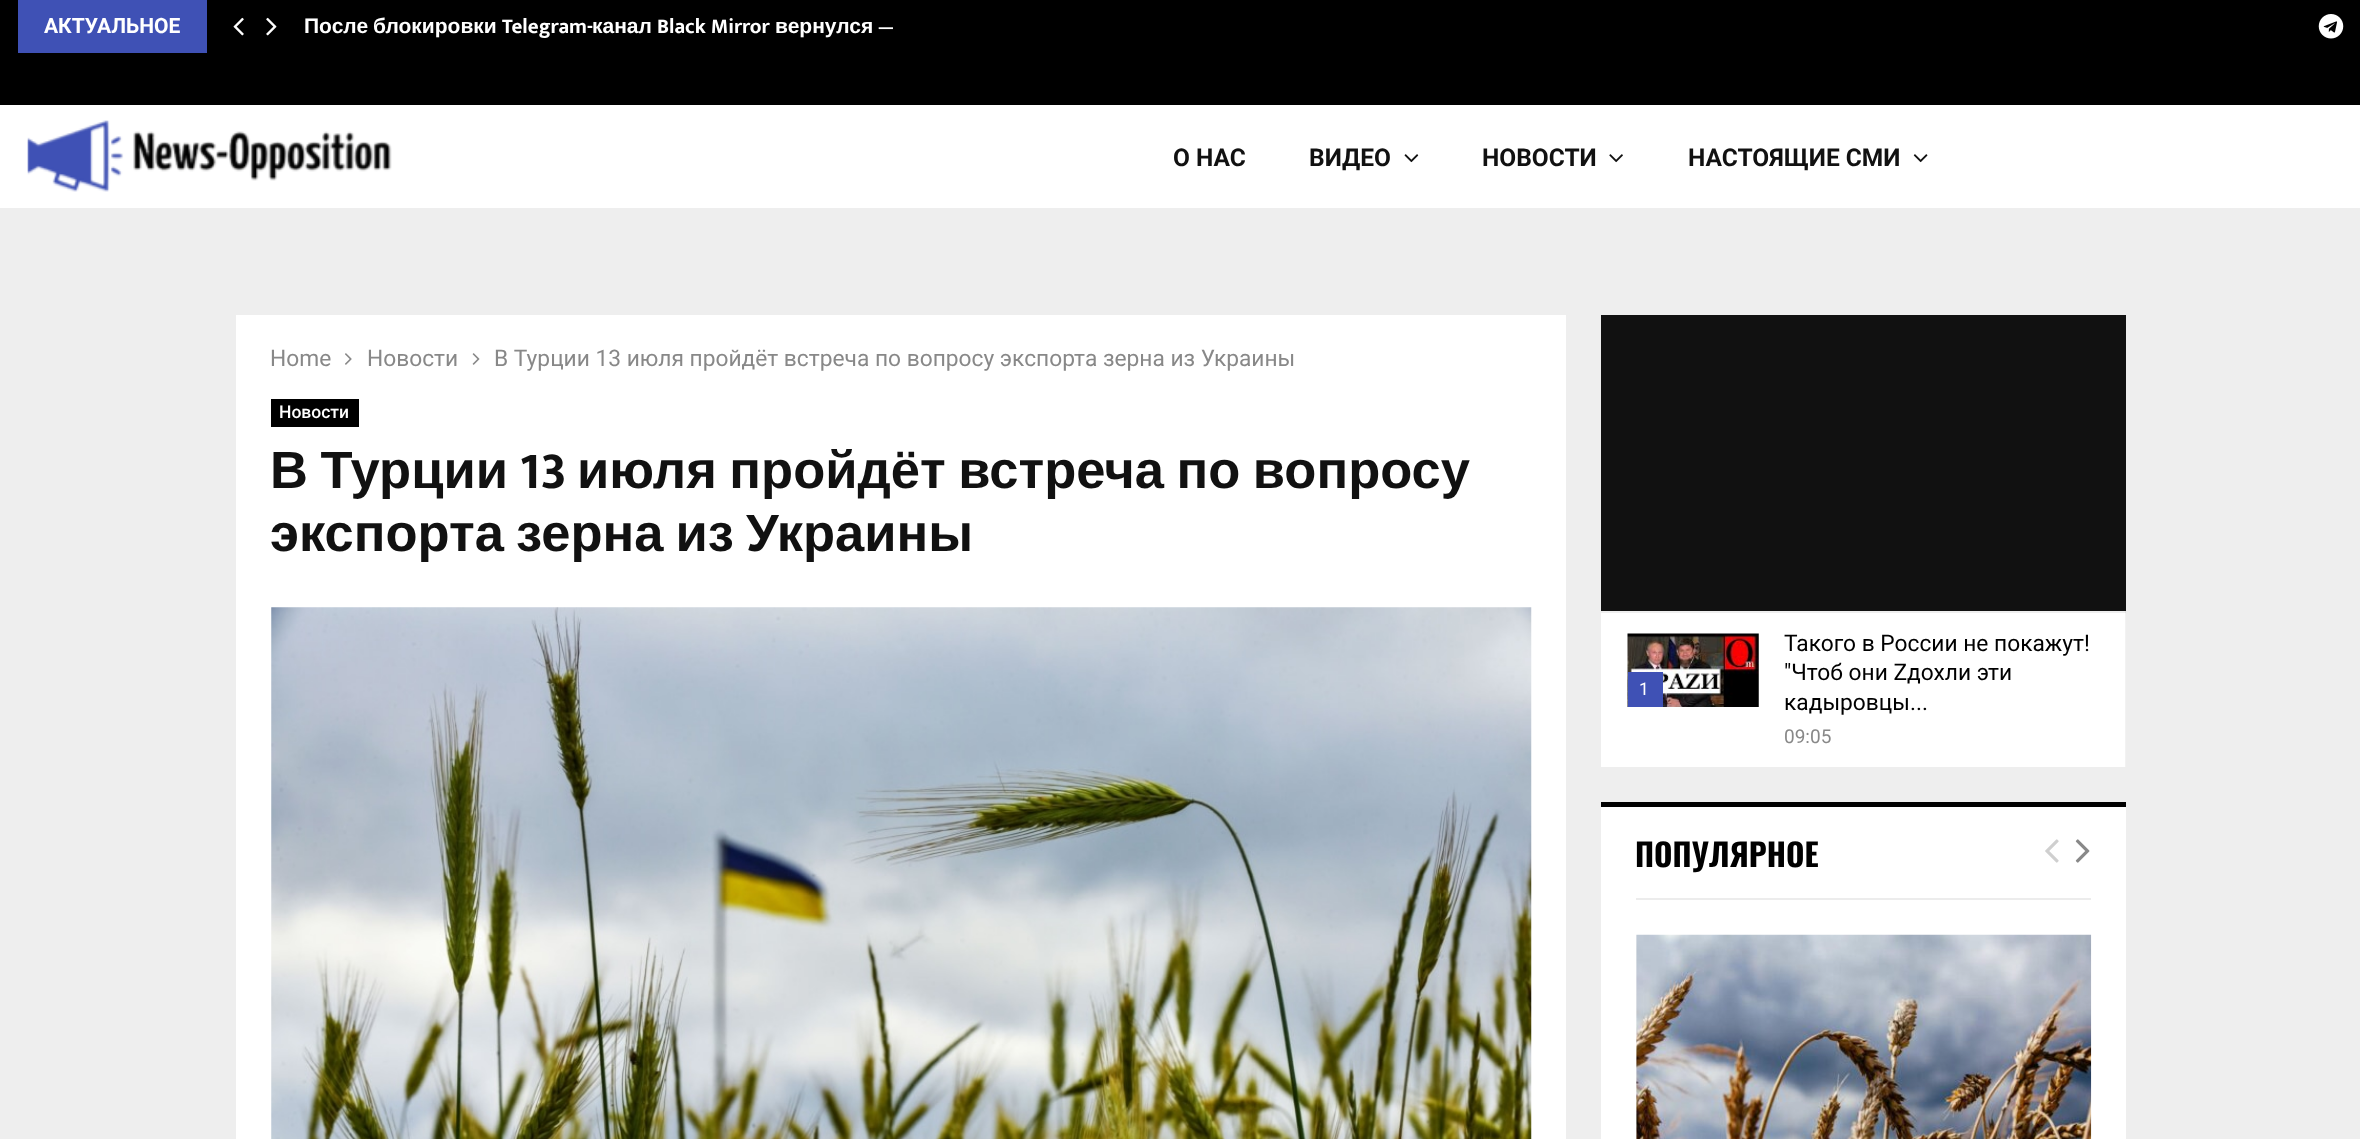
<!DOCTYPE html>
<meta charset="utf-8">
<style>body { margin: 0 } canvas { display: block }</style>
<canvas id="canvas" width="2360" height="1139"></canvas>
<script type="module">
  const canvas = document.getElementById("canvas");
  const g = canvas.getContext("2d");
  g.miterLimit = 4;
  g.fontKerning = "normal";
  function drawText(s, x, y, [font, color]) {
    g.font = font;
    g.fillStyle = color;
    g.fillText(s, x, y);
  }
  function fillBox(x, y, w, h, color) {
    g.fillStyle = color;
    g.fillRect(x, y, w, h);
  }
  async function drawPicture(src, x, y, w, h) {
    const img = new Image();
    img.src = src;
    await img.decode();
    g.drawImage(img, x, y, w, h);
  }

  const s1 = ["bold 21px Roboto", "#FFFFFF"];
  const s2 = ["bold 21px Liberation Sans", "#FFFFFF"];
  const s3 = ["bold 21px Mukta Vaani", "#FFFFFF"];
  const s4 = ["bold 24.5px Roboto", "#111111"];
  const s5 = ["22.75px Roboto", "#888888"];
  const s6 = ["500 17.5px Roboto", "#FFFFFF"];
  const s7 = ["bold 52.5px Liberation Sans", "#111111"];
  const s8 = ["bold 52.5px Mukta Vaani", "#111111"];
  const s9 = ["17.5px Roboto", "#FFFFFF"];
  const s10 = ["22.75px Roboto", "#000000"];
  const s11 = ["19px Roboto", "#888888"];
  const s12 = ["bold 31.5px Oswald", "#000000"];

  fillBox(0, 0, 2360, 1139, "#EEEEEE");
  fillBox(0, 0, 2360, 105, "#000000");
  fillBox(18, 0, 189, 53, "#3F51B5");
  drawText("АКТУАЛЬНОЕ", 44, 33, s1);
  await drawPicture("pic1.png", 233, 17, 11, 19);
  await drawPicture("pic2.png", 266, 17, 11, 19);
  drawText("После", 304, 33, s2);
  drawText("блокировки", 373, 33, s2);
  drawText("Telegram-", 502, 33, s3);
  drawText("канал", 592, 33, s2);
  drawText("Black Mirror", 657, 33, s3);
  drawText("вернулся", 775, 33, s2);
  g.save();
  g.beginPath();
  g.rect(305, 0, 588, 105);
  g.clip();
  drawText("—", 878, 33, s3);
  g.restore();
  await drawPicture("pic3.png", 2318, 14, 26, 25);
  fillBox(0, 105, 2360, 103, "#FFFFFF");
  await drawPicture("pic4.png", 27, 120, 365, 72);
  drawText("О НАС", 1173, 166, s4);
  drawText("ВИДЕО", 1309, 166, s4);
  await drawPicture("pic5.png", 1404, 154, 15, 9);
  drawText("НОВОСТИ", 1482, 166, s4);
  await drawPicture("pic6.png", 1609, 154, 14, 9);
  drawText("НАСТОЯЩИЕ СМИ", 1688, 166, s4);
  await drawPicture("pic7.png", 1913, 154, 15, 9);
  fillBox(236, 315, 1330, 824, "#FFFFFF");
  drawText("Home", 270, 366, s5);
  await drawPicture("pic8.png", 345, 353, 7, 12);
  drawText("Новости", 367, 366, s5);
  await drawPicture("pic9.png", 472, 353, 8, 12);
  drawText("В Турции 13 июля пройдёт встреча по вопросу экспорта зерна из Украины", 494, 366, s5);
  fillBox(271, 399, 88, 28, "#000000");
  drawText("Новости", 279, 418, s6);
  g.wordSpacing = "-2px";
  drawText("В Турции", 270, 488, s7);
  g.wordSpacing = "0px";
  drawText("13", 519, 488, s8);
  g.wordSpacing = "-2px";
  drawText("июля пройдёт встреча по вопросу", 577, 488, s7);
  g.wordSpacing = "-2.5px";
  drawText("экспорта зерна из Украины", 270, 551, s7);
  await drawPicture("pic10.png", 271, 607, 1261, 532);
  fillBox(1601, 613, 524, 154, "#FFFFFF");
  fillBox(2125, 611, 1, 156, "#F2F2F2");
  fillBox(1601, 315, 525, 296, "#111111");
  fillBox(2125, 611, 1, 2, "#ECECEC");
  fillBox(2125, 611, 1, 2, "#E0E0E0");
  await drawPicture("pic11.png", 1627, 633, 132, 74);
  fillBox(1628, 672, 35, 35, "#3F51B5");
  g.wordSpacing = "0px";
  drawText("1", 1639, 695, s9);
  drawText("Такого в России не покажут!", 1784, 651, s10);
  drawText("\"Чтоб они Zдохли эти", 1784, 680, s10);
  drawText("кадыровцы...", 1784, 710, s10);
  drawText("09:05", 1784, 743, s11);
  fillBox(1601, 807, 525, 332, "#FFFFFF");
  fillBox(1636, 898, 455, 2, "#ECECEC");
  fillBox(1601, 802, 525, 5, "#000000");
  drawText("ПОПУЛЯРНОЕ", 1635, 867, s12);
  await drawPicture("pic12.png", 2045, 839, 14, 24);
  await drawPicture("pic13.png", 2075, 839, 15, 24);
  fillBox(1636, 935, 1, 204, "#F5F5F5");
  await drawPicture("pic14.png", 1636, 934, 456, 205);
</script>
